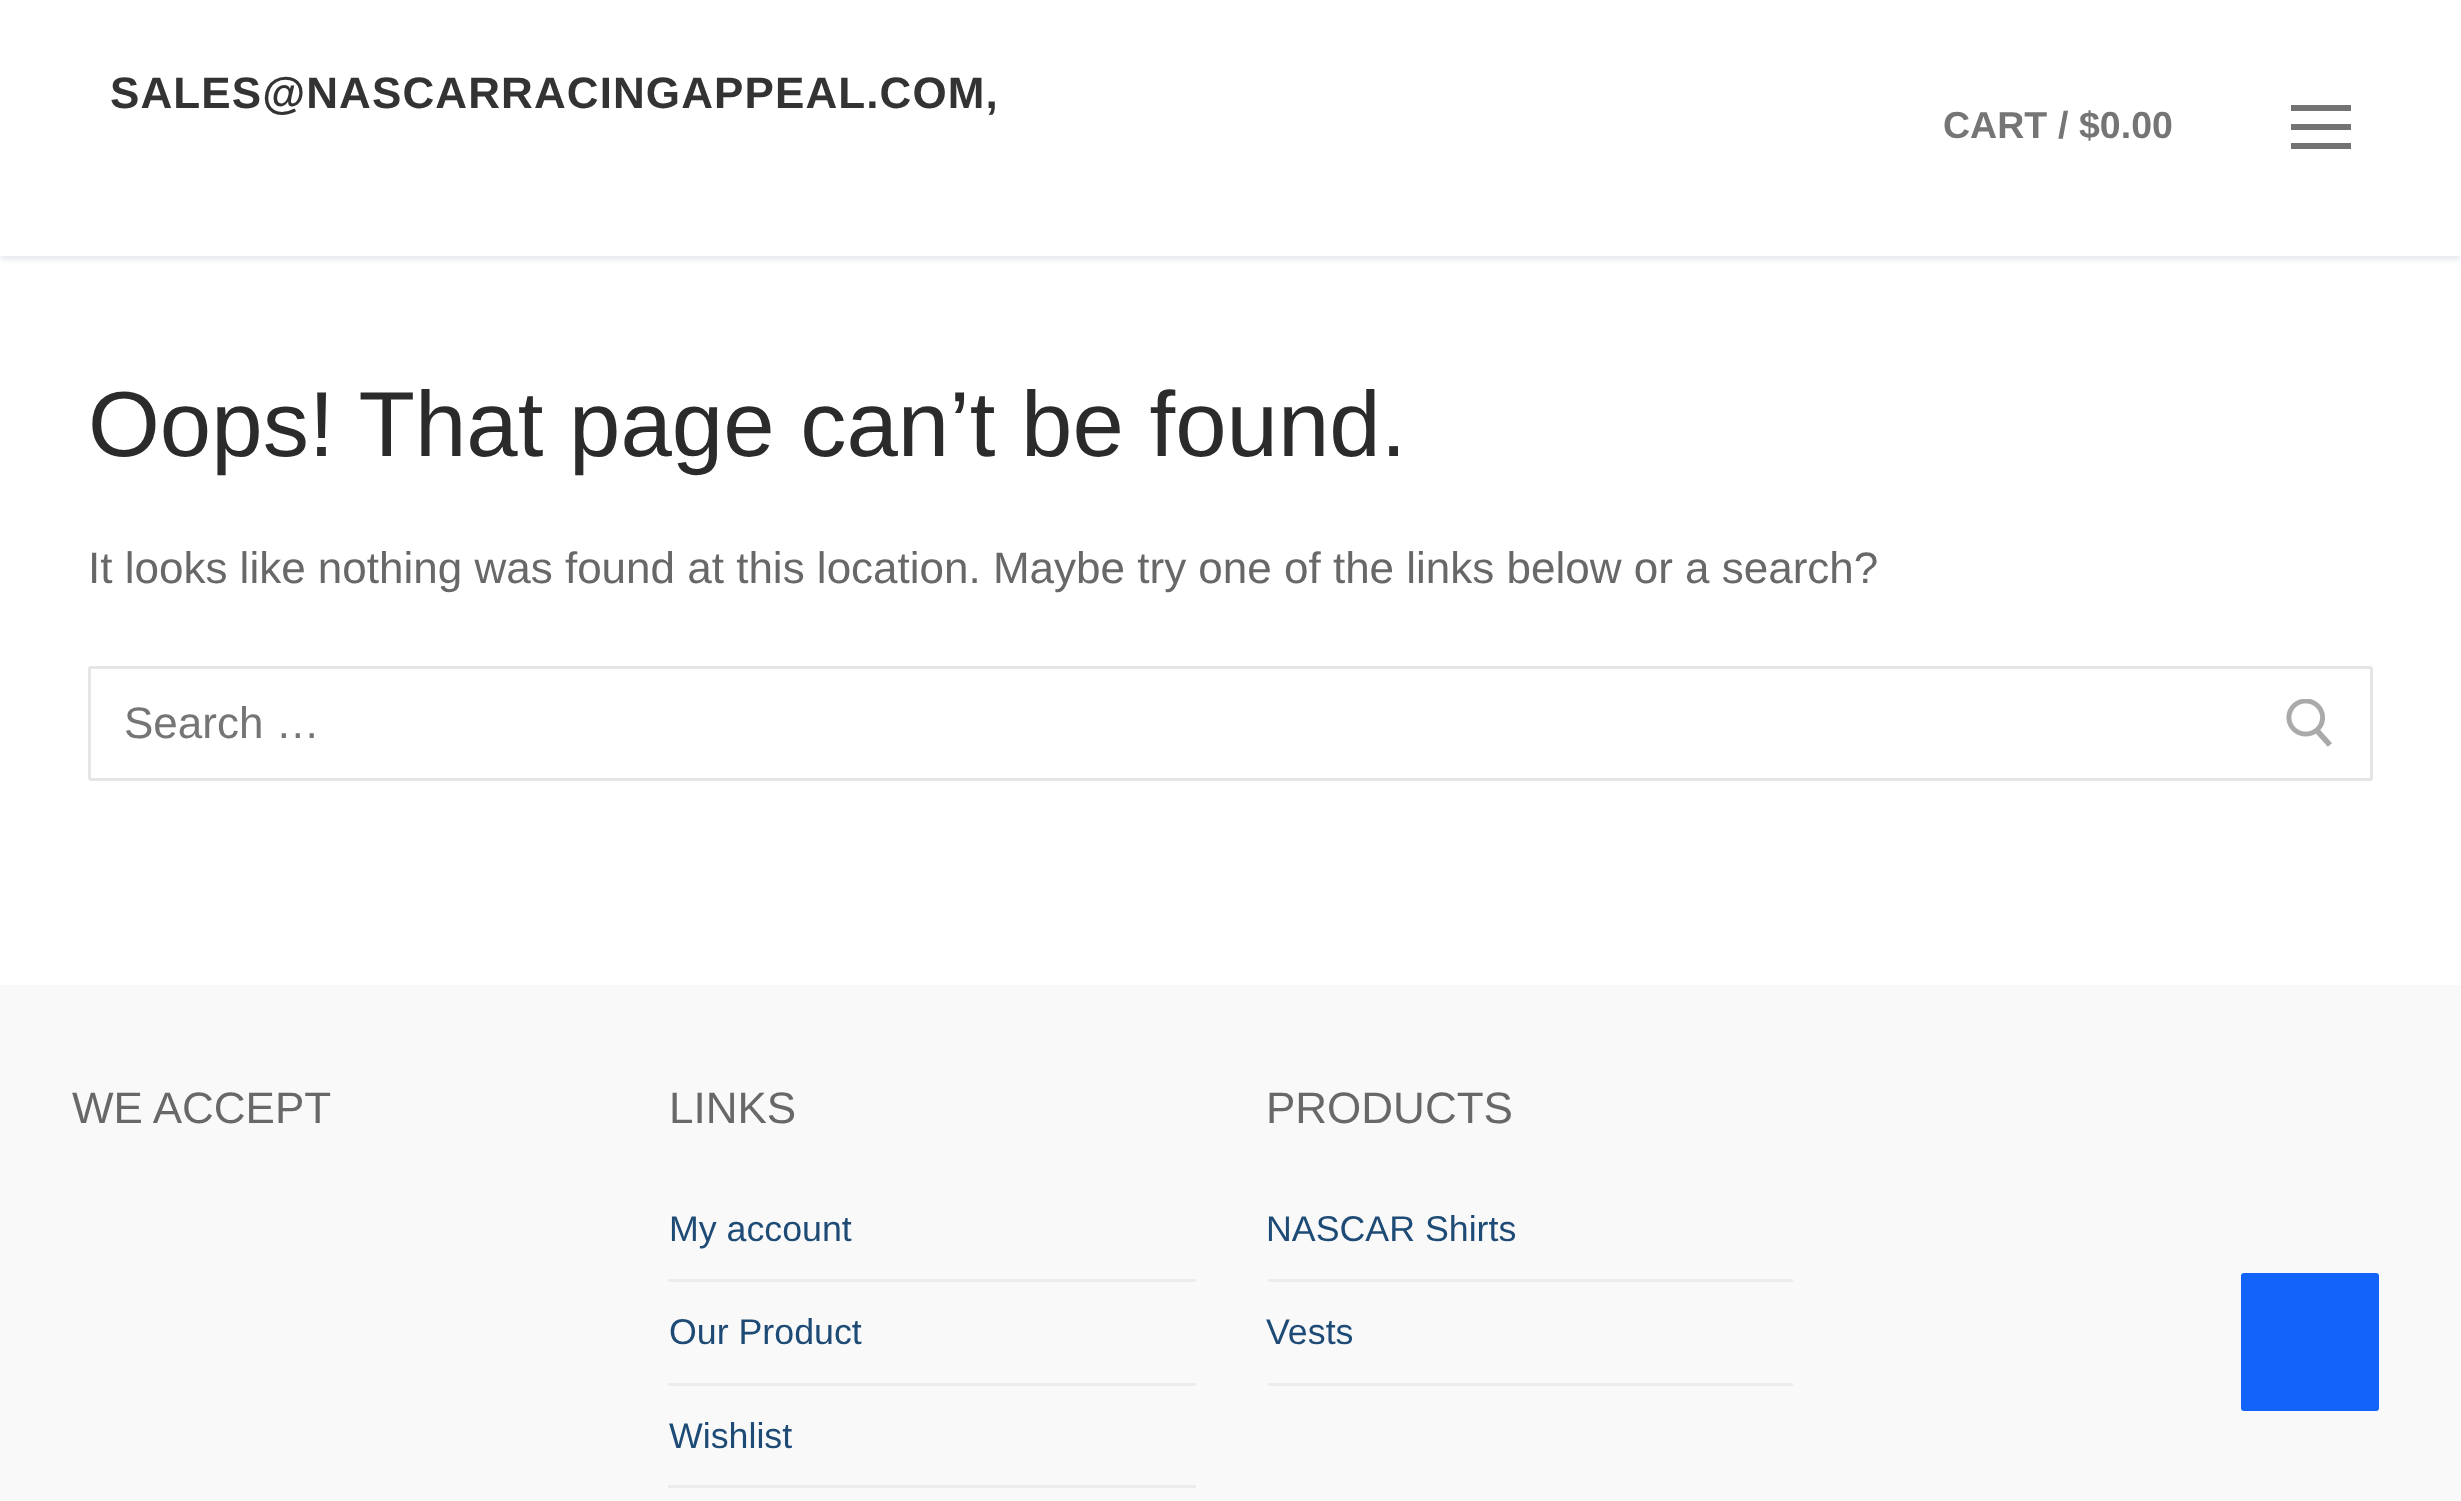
<!DOCTYPE html>
<meta charset="utf-8">
<style>body { margin: 0 } canvas { display: block }</style>
<canvas id="canvas" width="2461" height="1501"></canvas>
<script type="module">
  const canvas = document.getElementById("canvas");
  const g = canvas.getContext("2d");
  g.miterLimit = 4;
  g.fontKerning = "normal";
  function drawText(s, x, y, [font, color]) {
    g.font = font;
    g.fillStyle = color;
    g.fillText(s, x, y);
  }
  function fillBox(x, y, w, h, color) {
    g.fillStyle = color;
    g.fillRect(x, y, w, h);
  }
  function fillRounded(x, y, w, h, r, color) {
    g.fillStyle = color;
    g.beginPath();
    g.roundRect(x, y, w, h, r);
    g.fill();
  }
  async function drawPicture(src, x, y, w, h) {
    const img = new Image();
    img.src = src;
    await img.decode();
    g.drawImage(img, x, y, w, h);
  }

  const s1 = ["bold 44px Liberation Sans", "#333333"];
  const s2 = ["bold 37.5px Liberation Sans", "#757575"];
  const s3 = ["92.4px Liberation Sans", "#2B2B2B"];
  const s4 = ["44px Liberation Sans", "#686868"];
  const s5 = ["44px Liberation Sans", "#757575"];
  const s6 = ["35.75px Liberation Sans", "#1E4B75"];

  fillBox(0, 0, 2461, 1501, "#FFFFFF");
  g.fillStyle = "#E1E5EA";
  g.filter = "blur(3px)";
  g.beginPath();
  g.rect(0, 3, 2461, 256);
  g.fill();
  g.filter = "none";
  fillBox(0, 0, 2461, 256, "#FFFFFF");
  g.letterSpacing = "1.1px";
  drawText("SALES@NASCARRACINGAPPEAL.COM,", 110, 108, s1);
  g.letterSpacing = "0px";
  drawText("CART", 1943, 138, s2);
  drawText("/", 2058, 138, s2);
  drawText("$0.00", 2079, 138, s2);
  fillBox(2291, 124, 60, 6, "#737373");
  fillBox(2291, 105, 60, 6, "#737373");
  fillBox(2291, 143, 60, 6, "#737373");
  drawText("Oops! That page can’t be found.", 88, 456, s3);
  drawText("It looks like nothing was found at this location. Maybe try one of the links below or a search?", 88, 583, s4);
  g.beginPath();
  g.roundRect(89.5, 667.5, 2282, 112, 1.5);
  g.strokeStyle = "#E5E5E5";
  g.lineWidth = 3;
  g.stroke();
  drawText("Search …", 124, 738, s5);
  await drawPicture("pic1.png", 2286, 699, 46, 48);
  fillBox(0, 985, 2461, 516, "#F9F9F9");
  drawText("WE ACCEPT", 72, 1123, s4);
  drawText("LINKS", 669, 1123, s4);
  fillBox(668, 1279, 528, 3, "#EAECEE");
  drawText("My account", 669, 1241, s6);
  fillBox(668, 1383, 528, 3, "#EAECEE");
  drawText("Our Product", 669, 1344, s6);
  fillBox(668, 1485, 528, 3, "#EAECEE");
  drawText("Wishlist", 669, 1448, s6);
  drawText("PRODUCTS", 1266, 1123, s4);
  fillBox(1268, 1279, 525, 3, "#EAECEE");
  drawText("NASCAR Shirts", 1266, 1241, s6);
  fillBox(1268, 1383, 525, 3, "#EAECEE");
  drawText("Vests", 1266, 1344, s6);
  fillRounded(2241, 1273, 138, 138, 3, "#1163FA");
</script>
